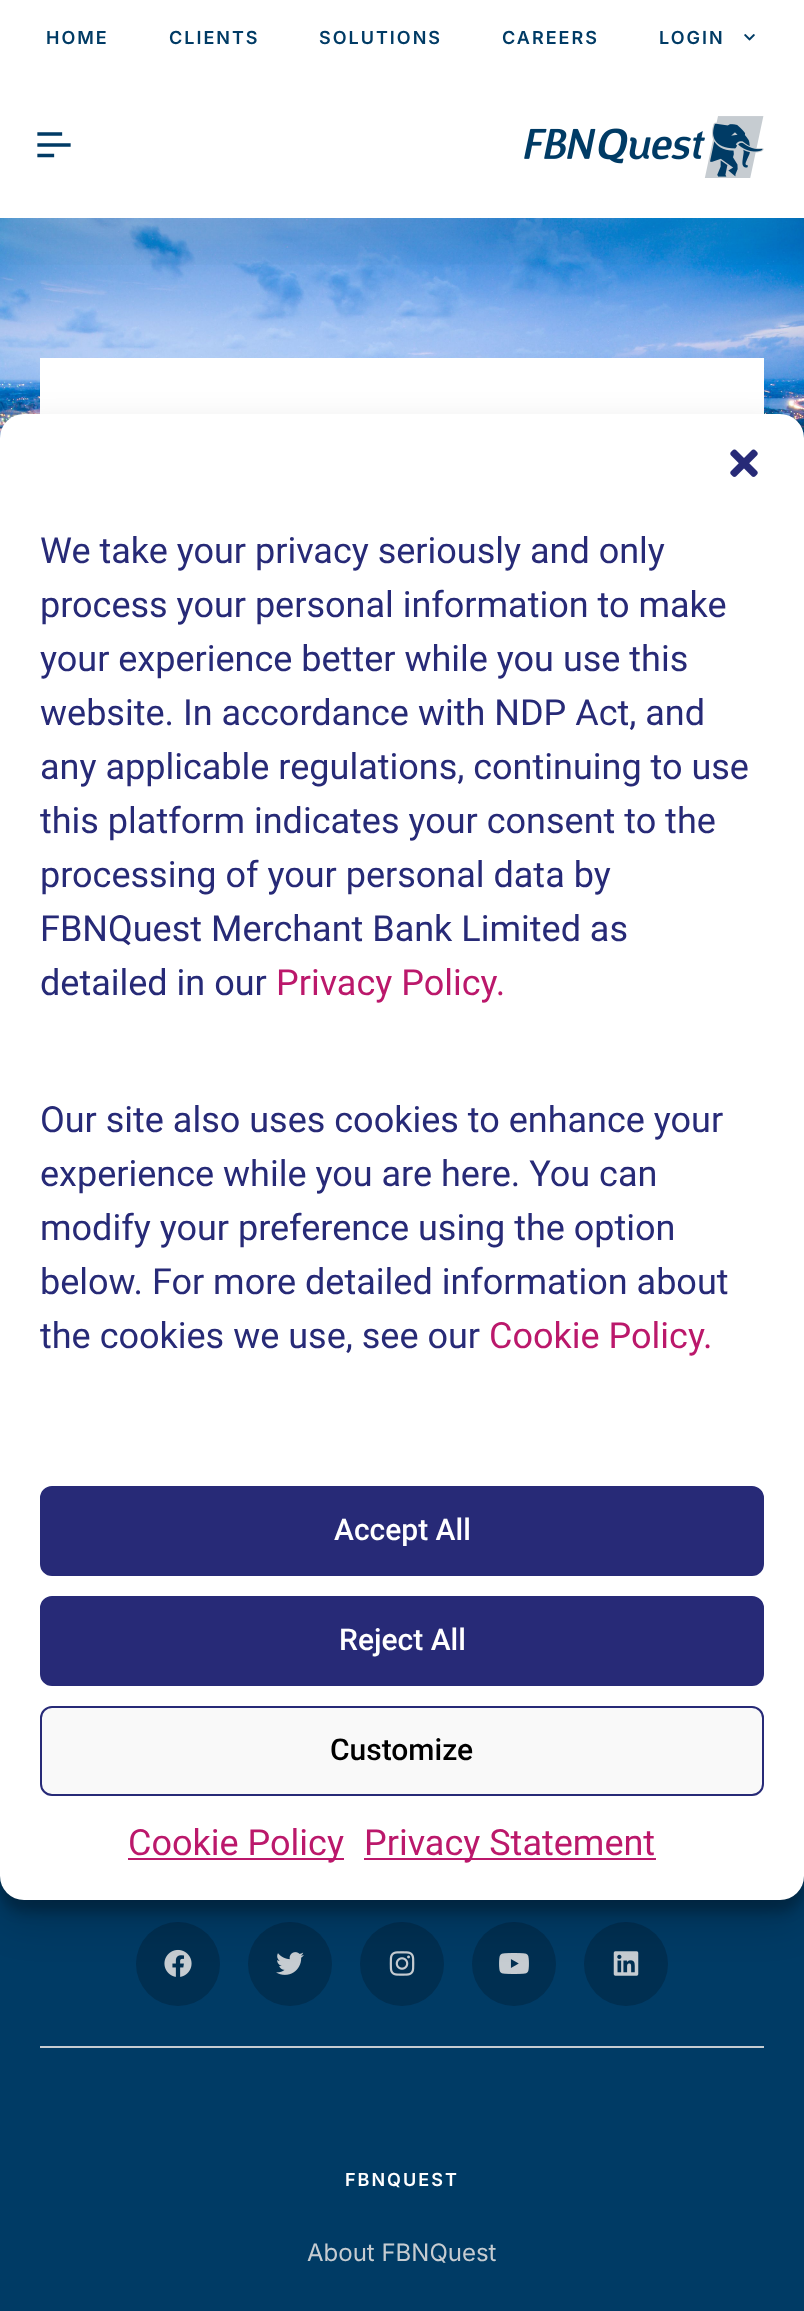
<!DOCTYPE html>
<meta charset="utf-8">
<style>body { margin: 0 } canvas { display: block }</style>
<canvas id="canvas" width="804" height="2311"></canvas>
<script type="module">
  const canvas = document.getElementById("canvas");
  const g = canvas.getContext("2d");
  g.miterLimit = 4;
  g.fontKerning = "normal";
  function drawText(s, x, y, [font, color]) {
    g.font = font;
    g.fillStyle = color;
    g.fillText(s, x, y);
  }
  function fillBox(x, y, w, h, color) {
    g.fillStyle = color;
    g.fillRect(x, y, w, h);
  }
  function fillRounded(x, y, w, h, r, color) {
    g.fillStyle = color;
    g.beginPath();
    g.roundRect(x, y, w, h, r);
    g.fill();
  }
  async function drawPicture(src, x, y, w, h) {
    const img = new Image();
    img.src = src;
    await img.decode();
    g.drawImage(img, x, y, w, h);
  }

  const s1 = ["600 18px Inter", "#003B65"];
  const s2 = ["36px Roboto", "#272A77"];
  const s3 = ["36px Roboto", "#BB186B"];
  const s4 = ["500 30px Roboto", "#FFFFFF"];
  const s5 = ["500 30px Roboto", "#000000"];
  const s6 = ["600 18px Inter", "#FFFFFF"];
  const s7 = ["24px Inter", "#C6CCD1"];

  fillBox(0, 0, 804, 2311, "#FFFFFF");
  g.letterSpacing = "2px";
  drawText("HOME", 46, 44, s1);
  drawText("CLIENTS", 169, 44, s1);
  drawText("SOLUTIONS", 319, 44, s1);
  drawText("CAREERS", 502, 44, s1);
  drawText("LOGIN", 659, 44, s1);
  await drawPicture("pic1.png", 744, 34, 11, 7);
  await drawPicture("pic3.png", 0, 218, 804, 220);
  g.save();
  g.beginPath();
  g.rect(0, 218, 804, 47);
  g.clip();
  g.fillStyle = "rgba(46, 55, 62, 0.1)";
  g.filter = "blur(20px)";
  g.beginPath();
  g.rect(0, 106, 804, 142);
  g.fill();
  g.filter = "none";
  g.restore();
  g.beginPath();
  g.moveTo(60.5, 134);
  g.lineTo(39, 134);
  g.moveTo(69, 145);
  g.lineTo(39, 145);
  g.moveTo(52.5, 155.5);
  g.lineTo(39, 155.5);
  g.strokeStyle = "#013B65";
  g.lineWidth = 3.3;
  g.lineCap = "square";
  g.stroke();
  await drawPicture("pic2.png", 524, 116, 240, 62);
  fillBox(40, 358, 724, 56, "#FFFFFF");
  fillBox(0, 1876, 804, 435, "#003B65");
  g.fillStyle = "#002F51";
  g.beginPath();
  g.arc(178, 1964, 42, 0, Math.PI * 2);
  g.fill();
  g.beginPath();
  g.arc(290, 1964, 42, 0, Math.PI * 2);
  g.fill();
  g.beginPath();
  g.arc(402, 1964, 42, 0, Math.PI * 2);
  g.fill();
  g.beginPath();
  g.arc(514, 1964, 42, 0, Math.PI * 2);
  g.fill();
  g.beginPath();
  g.arc(626, 1964, 42, 0, Math.PI * 2);
  g.fill();
  g.fillStyle = "rgba(0, 0, 0, 0.23)";
  g.filter = "blur(6px)";
  g.beginPath();
  g.roundRect(0, 426, 804, 1486, 24);
  g.fill();
  g.filter = "none";
  await drawPicture("pic5.png", 164, 1949, 28, 28);
  await drawPicture("pic6.png", 276, 1952, 28, 23);
  await drawPicture("pic7.png", 389, 1951, 26, 25);
  await drawPicture("pic8.png", 499, 1953, 30, 21);
  await drawPicture("pic9.png", 613, 1951, 26, 25);
  g.fillStyle = "rgba(0, 0, 0, 0.19)";
  g.filter = "blur(20px)";
  g.beginPath();
  g.roundRect(0, 434, 804, 1486, 24);
  g.fill();
  g.filter = "none";
  fillRounded(0, 414, 804, 1486, 24, "#FFFFFF");
  await drawPicture("pic4.png", 730, 449, 28, 28);
  g.letterSpacing = "0px";
  drawText("We take your privacy seriously and only", 40, 563, s2);
  drawText("process your personal information to make", 40, 617, s2);
  drawText("your experience better while you use this", 40, 671, s2);
  drawText("website. In accordance with NDP Act, and", 40, 725, s2);
  drawText("any applicable regulations, continuing to use", 40, 779, s2);
  drawText("this platform indicates your consent to the", 40, 833, s2);
  drawText("processing of your personal data by", 40, 887, s2);
  drawText("FBNQuest Merchant Bank Limited as", 40, 941, s2);
  drawText("detailed in our", 40, 995, s2);
  drawText("Privacy Policy.", 276, 995, s3);
  drawText("Our site also uses cookies to enhance your", 40, 1132, s2);
  drawText("experience while you are here. You can", 40, 1186, s2);
  drawText("modify your preference using the option", 40, 1240, s2);
  drawText("below. For more detailed information about", 40, 1294, s2);
  drawText("the cookies we use, see our", 40, 1348, s2);
  drawText("Cookie Policy.", 489, 1348, s3);
  g.fillStyle = "#272A77";
  g.beginPath();
  g.roundRect(41, 1487, 722, 88, 11);
  g.fill();
  g.strokeStyle = "#272A77";
  g.lineWidth = 2;
  g.stroke();
  drawText("Accept All", 334, 1540, s4);
  g.fillStyle = "#272A77";
  g.beginPath();
  g.roundRect(41, 1597, 722, 88, 11);
  g.fill();
  g.stroke();
  drawText("Reject All", 339, 1650, s4);
  g.fillStyle = "#F9F9F9";
  g.beginPath();
  g.roundRect(41, 1707, 722, 88, 11);
  g.fill();
  g.stroke();
  drawText("Customize", 330, 1760, s5);
  fillBox(128, 1858, 216, 2, "#BB186B");
  drawText("Cookie Policy", 128, 1855, s3);
  fillBox(364, 1858, 292, 2, "#BB186B");
  drawText("Privacy Statement", 364, 1855, s3);
  fillBox(40, 2046, 724, 2, "#C6CCD1");
  g.letterSpacing = "2px";
  drawText("FBNQUEST", 345, 2186, s6);
  g.letterSpacing = "0px";
  drawText("About FBNQuest", 307, 2261, s7);
</script>
